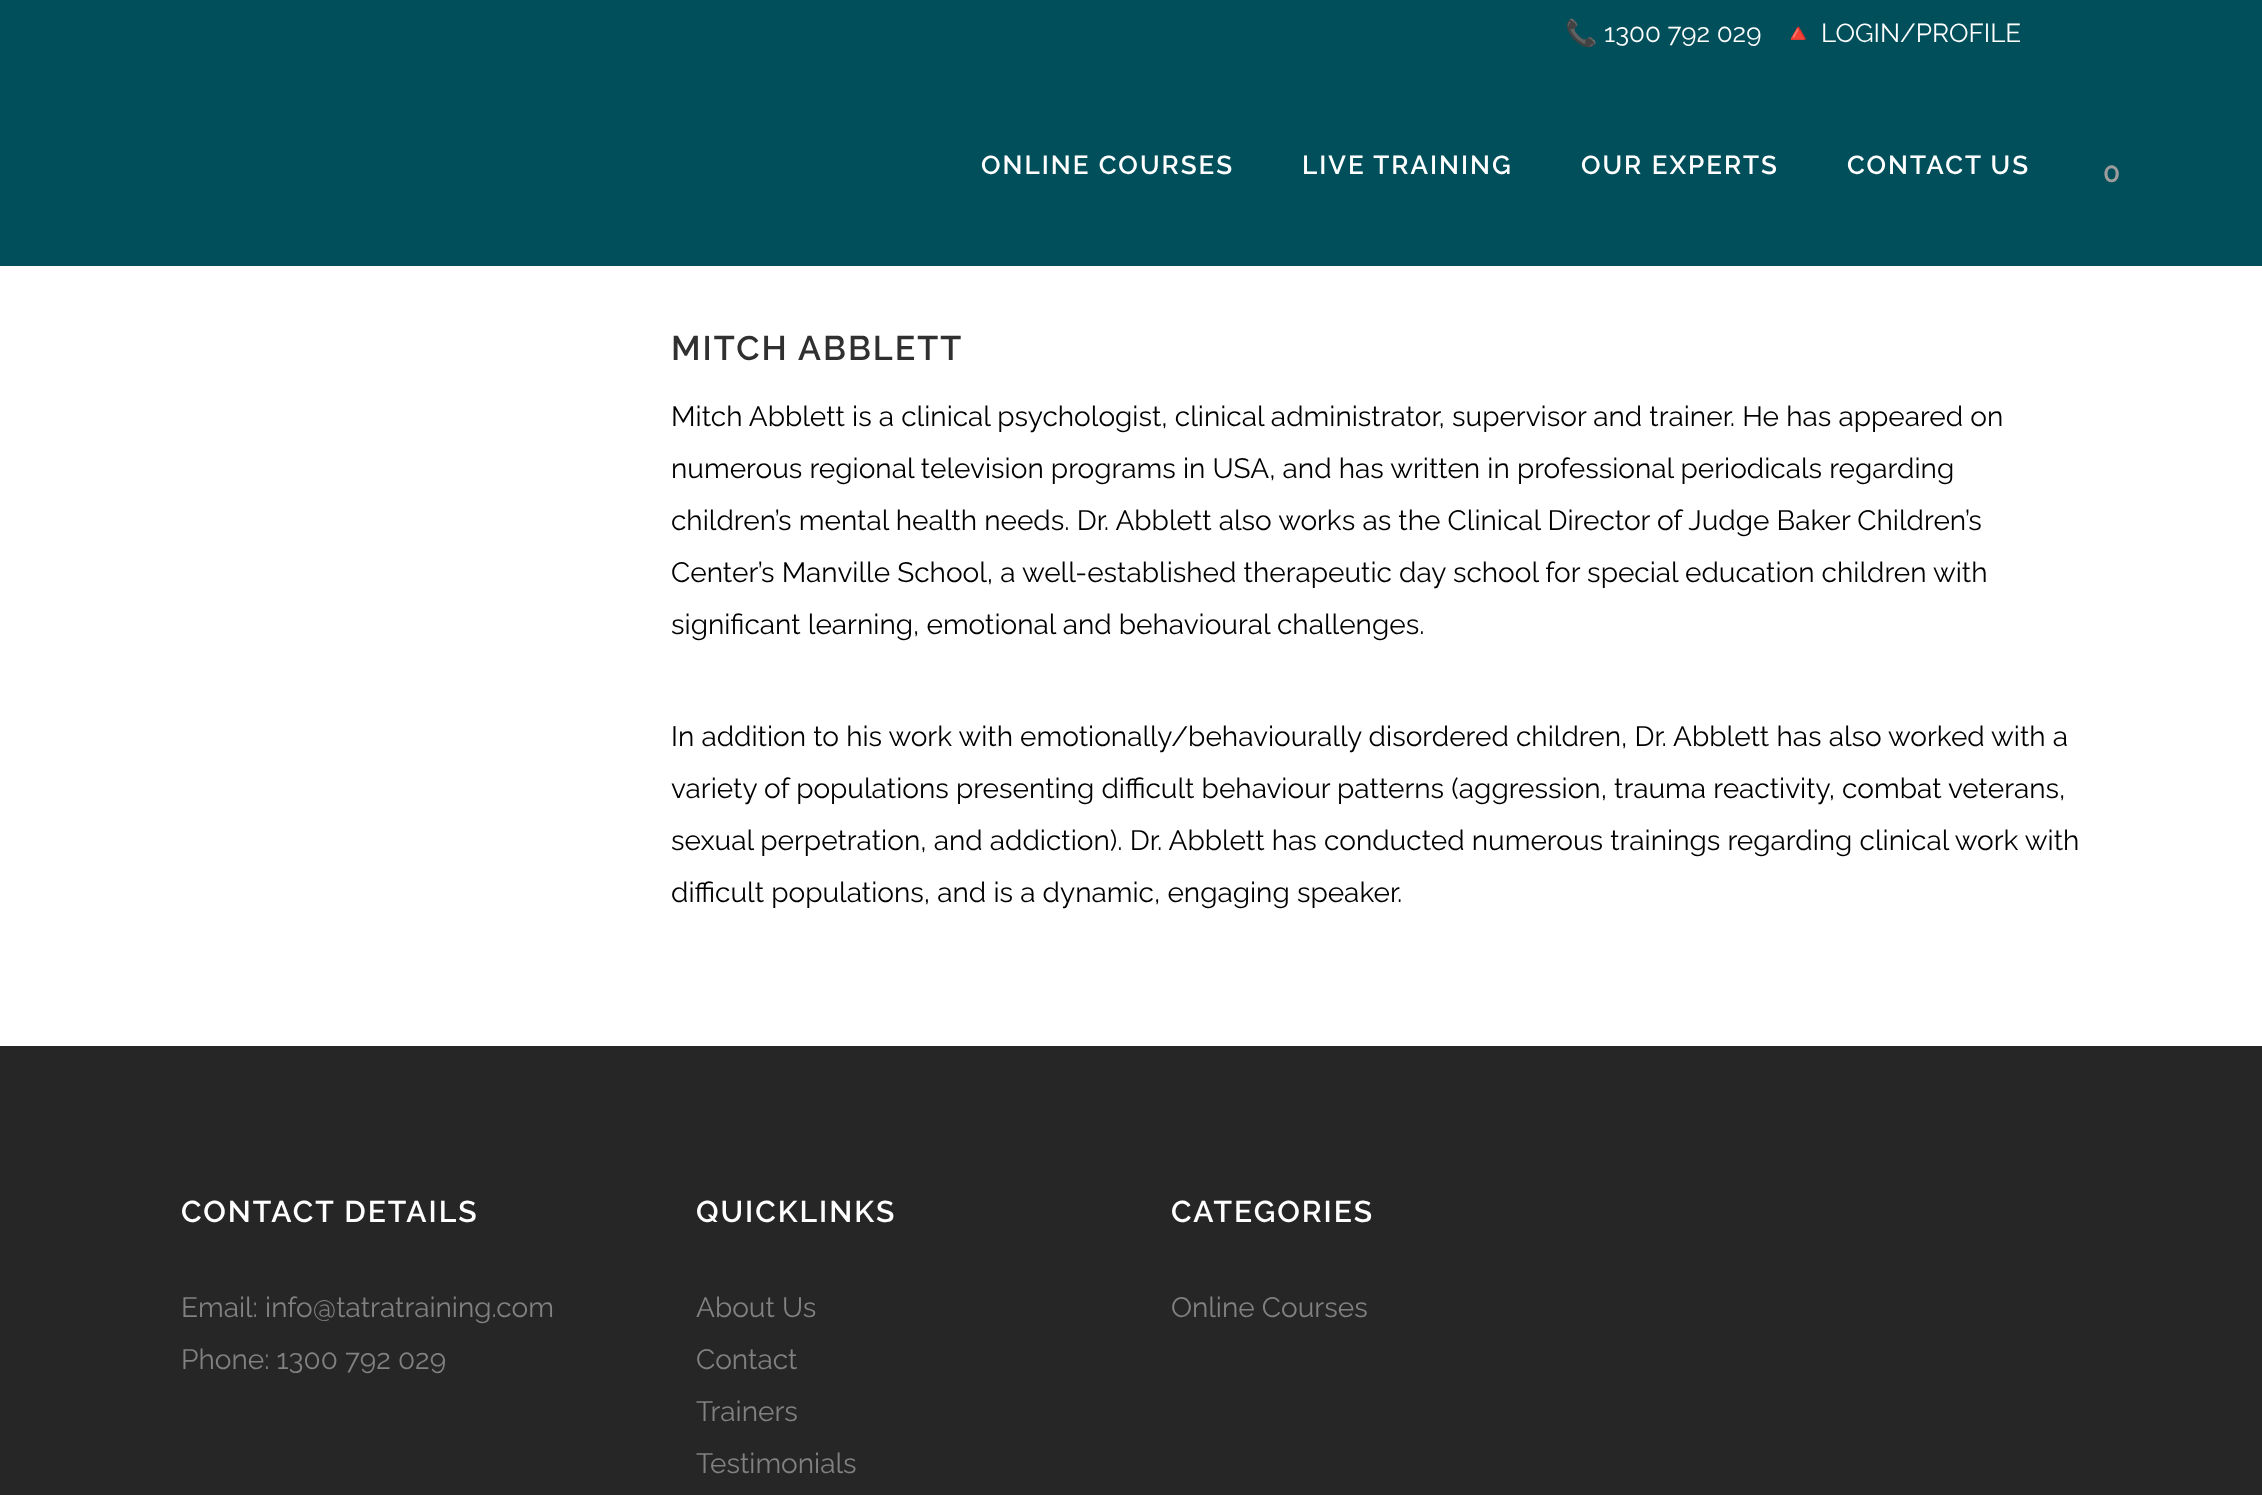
<!DOCTYPE html>
<meta charset="utf-8">
<style>body { margin: 0 } canvas { display: block }</style>
<canvas id="canvas" width="2262" height="1495"></canvas>
<script type="module">
  const canvas = document.getElementById("canvas");
  const g = canvas.getContext("2d");
  g.miterLimit = 4;
  g.fontKerning = "normal";
  function drawText(s, x, y, [font, color]) {
    g.font = font;
    g.fillStyle = color;
    g.fillText(s, x, y);
  }
  function fillBox(x, y, w, h, color) {
    g.fillStyle = color;
    g.fillRect(x, y, w, h);
  }

  const s1 = ["26px Noto Color Emoji", "#FFFFFF"];
  const s2 = ["26px Raleway", "#FFFFFF"];
  const s3 = ["600 26px Raleway", "#FFFFFF"];
  const s4 = ["600 28px Raleway", "#9D9D9D"];
  const s5 = ["600 34px Raleway", "#303030"];
  const s6 = ["28px Raleway", "#000000"];
  const s7 = ["600 30px Raleway", "#FFFFFF"];
  const s8 = ["28px Raleway", "#818181"];

  fillBox(0, 0, 2262, 1495, "#FFFFFF");
  fillBox(0, 0, 2262, 266, "#004F5B");
  drawText("📞", 1565, 42, s1);
  drawText("1300 792 029", 1604, 42, s2);
  drawText("🔺", 1782, 42, s1);
  drawText("LOGIN/PROFILE", 1821, 42, s2);
  g.letterSpacing = "2px";
  drawText("ONLINE COURSES", 981, 174, s3);
  drawText("LIVE TRAINING", 1302, 174, s3);
  drawText("OUR EXPERTS", 1581, 174, s3);
  drawText("CONTACT US", 1847, 174, s3);
  g.letterSpacing = "0px";
  drawText("0", 2103, 182, s4);
  g.letterSpacing = "2px";
  drawText("MITCH ABBLETT", 671, 360, s5);
  g.letterSpacing = "0px";
  drawText("Mitch Abblett is a clinical psychologist, clinical administrator, supervisor and trainer. He has appeared on", 671, 426, s6);
  drawText("numerous regional television programs in USA, and has written in professional periodicals regarding", 671, 478, s6);
  drawText("children’s mental health needs. Dr. Abblett also works as the Clinical Director of Judge Baker Children’s", 671, 530, s6);
  drawText("Center’s Manville School, a well-established therapeutic day school for special education children with", 671, 582, s6);
  drawText("significant learning, emotional and behavioural challenges.", 671, 634, s6);
  drawText("In addition to his work with emotionally/behaviourally disordered children, Dr. Abblett has also worked with a", 671, 746, s6);
  drawText("variety of populations presenting difficult behaviour patterns (aggression, trauma reactivity, combat veterans,", 671, 798, s6);
  drawText("sexual perpetration, and addiction). Dr. Abblett has conducted numerous trainings regarding clinical work with", 671, 850, s6);
  drawText("difficult populations, and is a dynamic, engaging speaker.", 671, 902, s6);
  fillBox(0, 1046, 2262, 449, "#262626");
  g.letterSpacing = "2px";
  drawText("CONTACT DETAILS", 181, 1222, s7);
  g.letterSpacing = "0px";
  drawText("Email: info@tatratraining.com", 181, 1317, s8);
  drawText("Phone: 1300 792 029", 181, 1369, s8);
  g.letterSpacing = "2px";
  drawText("QUICKLINKS", 696, 1222, s7);
  g.letterSpacing = "0px";
  drawText("About Us", 696, 1317, s8);
  drawText("Contact", 696, 1369, s8);
  drawText("Trainers", 696, 1421, s8);
  drawText("Testimonials", 696, 1473, s8);
  g.letterSpacing = "2px";
  drawText("CATEGORIES", 1171, 1222, s7);
  g.letterSpacing = "0px";
  drawText("Online Courses", 1171, 1317, s8);
</script>
